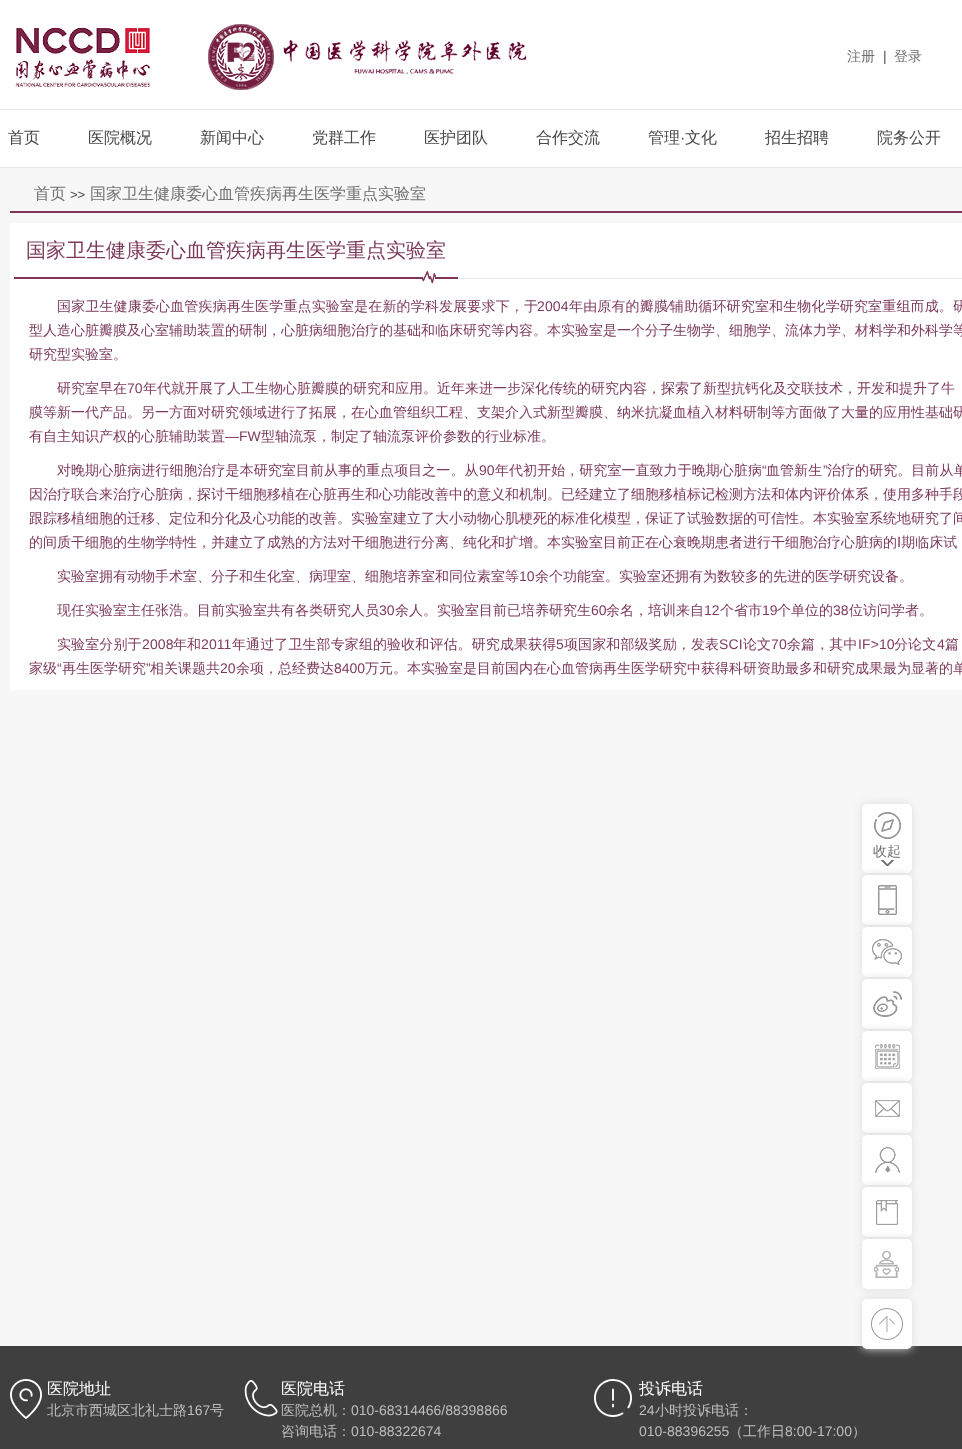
<!DOCTYPE html>
<meta charset="utf-8">
<style>body { margin: 0 } canvas { display: block }</style>
<canvas id="canvas" width="962" height="1449"></canvas>
<script type="module">
  const canvas = document.getElementById("canvas");
  const g = canvas.getContext("2d");
  g.miterLimit = 4;
  g.fontKerning = "normal";
  function drawText(s, x, y, [font, color]) {
    g.font = font;
    g.fillStyle = color;
    g.fillText(s, x, y);
  }
  function fillBox(x, y, w, h, color) {
    g.fillStyle = color;
    g.fillRect(x, y, w, h);
  }
  function fillRounded(x, y, w, h, r, color) {
    g.fillStyle = color;
    g.beginPath();
    g.roundRect(x, y, w, h, r);
    g.fill();
  }
  async function drawPicture(src, x, y, w, h) {
    const img = new Image();
    img.src = src;
    await img.decode();
    g.drawImage(img, x, y, w, h);
  }

  const s1 = ["500 14px WenQuanYi Zen Hei", "#707070"];
  const s2 = ["14px Liberation Sans", "#505050"];
  const s3 = ["500 16px WenQuanYi Zen Hei", "#474747"];
  const s4 = ["16px Liberation Sans", "#474747"];
  const s5 = ["500 16px WenQuanYi Zen Hei", "#707070"];
  const s6 = ["13px Liberation Sans", "#505050"];
  const s7 = ["500 20px WenQuanYi Zen Hei", "#7D3A5B"];
  const s8 = ["500 14px WenQuanYi Zen Hei", "#7D3A5B"];
  const s9 = ["14px Liberation Sans", "#7D3A5B"];
  const s10 = ["14px DejaVu Sans", "#7D3A5B"];
  const s11 = ["500 16px WenQuanYi Zen Hei", "#FFFFFF"];
  const s12 = ["500 14px WenQuanYi Zen Hei", "#BEBEBE"];
  const s13 = ["14px Liberation Sans", "#BEBEBE"];

  fillBox(0, 0, 962, 1449, "#F7F7F7");
  fillBox(0, 0, 962, 167, "#FFFFFF");
  fillBox(0, 109, 962, 1, "#EAEAEA");
  await drawPicture("pic1.png", 15, 27, 136, 60);
  await drawPicture("pic2.png", 208, 24, 319, 66);
  drawText("注册", 847, 61, s1);
  drawText("|", 883, 61, s2);
  drawText("登录", 894, 61, s1);
  fillBox(0, 167, 962, 1, "#EAEAEA");
  drawText("首页", 8, 143, s3);
  drawText("医院概况", 88, 143, s3);
  drawText("新闻中心", 200, 143, s3);
  drawText("党群工作", 312, 143, s3);
  drawText("医护团队", 424, 143, s3);
  drawText("合作交流", 536, 143, s3);
  drawText("管理", 648, 143, s3);
  drawText("·", 680, 143, s4);
  drawText("文化", 685, 143, s3);
  drawText("招生招聘", 765, 143, s3);
  drawText("院务公开", 877, 143, s3);
  fillBox(10, 211, 952, 2, "#7E3559");
  drawText("首页", 34, 199, s5);
  drawText(">>", 70, 199, s6);
  drawText("国家卫生健康委心血管疾病再生医学重点实验室", 90, 199, s5);
  fillBox(10, 223, 952, 467, "#FFFFFF");
  fillBox(14, 277, 444, 2, "#7E3559");
  drawText("国家卫生健康委心血管疾病再生医学重点实验室", 26, 257, s7);
  await drawPicture("pic3.png", 422, 271, 14, 13);
  fillBox(458, 278, 504, 1, "#EBEBEB");
  g.letterSpacing = "0.15px";
  drawText("国家卫生健康委心血管疾病再生医学重点实验室是在新的学科发展要求下，于", 57, 311, s8);
  drawText("2004", 537, 311, s9);
  drawText("年由原有的瓣膜", 569, 311, s8);
  drawText("∕", 668, 311, s9);
  drawText("辅助循环研究室和生物化学研究室重组而成。研", 670, 311, s8);
  g.letterSpacing = "0px";
  drawText("型人造心脏瓣膜及心室辅助装置的研制，心脏病细胞治疗的基础和临床研究等内容。本实验室是一个分子生物学、细胞学、流体力学、材料学和外科学等", 29, 335, s8);
  drawText("研究型实验室。", 29, 359, s8);
  drawText("研究室早在", 57, 393, s8);
  drawText("70", 127, 393, s9);
  drawText("年代就开展了人工生物心脏瓣膜的研究和应用。近年来进一步深化传统的研究内容，探索了新型抗钙化及交联技术，开发和提升了牛", 143, 393, s8);
  drawText("膜等新一代产品。另一方面对研究领域进行了拓展，在心血管组织工程、支架介入式新型瓣膜、纳米抗凝血植入材料研制等方面做了大量的应用性基础研", 29, 417, s8);
  drawText("有自主知识产权的心脏辅助装置", 29, 441, s8);
  drawText("—FW", 225, 441, s9);
  drawText("型轴流泵，制定了轴流泵评价参数的行业标准。", 261, 441, s8);
  g.letterSpacing = "0.05px";
  drawText("对晚期心脏病进行细胞治疗是本研究室目前从事的重点项目之一。从", 57, 475, s8);
  drawText("90", 479, 475, s9);
  drawText("年代初开始，研究室一直致力于晚期心脏病", 495, 475, s8);
  drawText("“", 762, 475, s9);
  drawText("血管新生", 766, 475, s8);
  drawText("”", 823, 475, s9);
  drawText("治疗的研究。目前从单", 827, 475, s8);
  g.letterSpacing = "0px";
  drawText("因治疗联合来治疗心脏病，探讨干细胞移植在心脏再生和心功能改善中的意义和机制。已经建立了细胞移植标记检测方法和体内评价体系，使用多种手段", 29, 499, s8);
  drawText("跟踪移植细胞的迁移、定位和分化及心功能的改善。实验室建立了大小动物心肌梗死的标准化模型，保证了试验数据的可信性。本实验室系统地研究了间", 29, 523, s8);
  drawText("的间质干细胞的生物学特性，并建立了成熟的方法对干细胞进行分离、纯化和扩增。本实验室目前正在心衰晚期患者进行干细胞治疗心脏病的 期临床试", 29, 547, s8);
  drawText("Ⅰ", 897, 547, s10);
  drawText("实验室拥有动物手术室、分子和生化室、病理室、细胞培养室和同位素室等", 57, 581, s8);
  drawText("10", 519, 581, s9);
  drawText("余个功能室。实验室还拥有为数较多的先进的医学研究设备。", 535, 581, s8);
  drawText("现任实验室主任张浩。目前实验室共有各类研究人员", 57, 615, s8);
  drawText("30", 379, 615, s9);
  drawText("余人。实验室目前已培养研究生", 395, 615, s8);
  drawText("60", 591, 615, s9);
  drawText("余名，培训来自", 606, 615, s8);
  drawText("12", 704, 615, s9);
  drawText("个省市", 720, 615, s8);
  drawText("19", 762, 615, s9);
  drawText("个单位的", 777, 615, s8);
  drawText("38", 833, 615, s9);
  drawText("位访问学者。", 849, 615, s8);
  g.letterSpacing = "0.1px";
  drawText("实验室分别于", 57, 649, s8);
  drawText("2008", 142, 649, s9);
  drawText("年和", 173, 649, s8);
  drawText("2011", 201, 649, s9);
  drawText("年通过了卫生部专家组的验收和评估。研究成果获得", 232, 649, s8);
  drawText("5", 556, 649, s9);
  drawText("项国家和部级奖励，发表", 564, 649, s8);
  drawText("SCI", 719, 649, s9);
  drawText("论文", 743, 649, s8);
  drawText("70", 771, 649, s9);
  drawText("余篇，其中", 787, 649, s8);
  drawText("IF>10", 858, 649, s9);
  drawText("分论文", 894, 649, s8);
  drawText("4", 937, 649, s9);
  drawText("篇", 945, 649, s8);
  g.letterSpacing = "0px";
  drawText("家级", 29, 673, s8);
  drawText("“", 57, 673, s9);
  drawText("再生医学研究", 62, 673, s8);
  drawText("”", 146, 673, s9);
  drawText("相关课题共", 150, 673, s8);
  drawText("20", 220, 673, s9);
  drawText("余项，总经费达", 236, 673, s8);
  drawText("8400", 334, 673, s9);
  drawText("万元。本实验室是目前国内在心血管病再生医学研究中获得科研资助最多和研究成果最为显著的单", 365, 673, s8);
  g.fillStyle = "#DDDDDD";
  g.filter = "blur(5px)";
  g.beginPath();
  g.roundRect(862, 804, 50, 69, 5);
  g.fill();
  g.filter = "none";
  fillRounded(862, 804, 50, 69, 5, "#FFFFFF");
  await drawPicture("pic4.png", 880, 860, 15, 6);
  await drawPicture("pic5.png", 874, 812, 27, 27);
  drawText("收起", 873, 856, s1);
  g.fillStyle = "#DDDDDD";
  g.filter = "blur(5px)";
  g.beginPath();
  g.roundRect(862, 875, 50, 50, 5);
  g.fill();
  g.filter = "none";
  fillRounded(862, 875, 50, 50, 5, "#FFFFFF");
  await drawPicture("pic6.png", 878, 885, 19, 30);
  g.fillStyle = "#DDDDDD";
  g.filter = "blur(5px)";
  g.beginPath();
  g.roundRect(862, 927, 50, 50, 5);
  g.fill();
  g.filter = "none";
  fillRounded(862, 927, 50, 50, 5, "#FFFFFF");
  await drawPicture("pic7.png", 872, 939, 30, 26);
  g.fillStyle = "#DDDDDD";
  g.filter = "blur(5px)";
  g.beginPath();
  g.roundRect(862, 979, 50, 50, 5);
  g.fill();
  g.filter = "none";
  fillRounded(862, 979, 50, 50, 5, "#FFFFFF");
  await drawPicture("pic8.png", 873, 991, 29, 26);
  g.fillStyle = "#DDDDDD";
  g.filter = "blur(5px)";
  g.beginPath();
  g.roundRect(862, 1031, 50, 50, 5);
  g.fill();
  g.filter = "none";
  fillRounded(862, 1031, 50, 50, 5, "#FFFFFF");
  await drawPicture("pic9.png", 875, 1044, 25, 25);
  g.fillStyle = "#DDDDDD";
  g.filter = "blur(5px)";
  g.beginPath();
  g.roundRect(862, 1083, 50, 50, 5);
  g.fill();
  g.filter = "none";
  fillRounded(862, 1083, 50, 50, 5, "#FFFFFF");
  await drawPicture("pic10.png", 875, 1100, 25, 17);
  g.fillStyle = "#DDDDDD";
  g.filter = "blur(5px)";
  g.beginPath();
  g.roundRect(862, 1135, 50, 50, 5);
  g.fill();
  g.filter = "none";
  fillRounded(862, 1135, 50, 50, 5, "#FFFFFF");
  await drawPicture("pic11.png", 875, 1147, 25, 26);
  g.fillStyle = "#DDDDDD";
  g.filter = "blur(5px)";
  g.beginPath();
  g.roundRect(862, 1187, 50, 50, 5);
  g.fill();
  g.filter = "none";
  fillRounded(862, 1187, 50, 50, 5, "#FFFFFF");
  await drawPicture("pic12.png", 876, 1200, 22, 25);
  g.fillStyle = "#DDDDDD";
  g.filter = "blur(5px)";
  g.beginPath();
  g.roundRect(862, 1239, 50, 50, 5);
  g.fill();
  g.filter = "none";
  fillRounded(862, 1239, 50, 50, 5, "#FFFFFF");
  await drawPicture("pic13.png", 874, 1251, 25, 27);
  fillBox(0, 1346, 962, 103, "#3F3F3F");
  g.fillStyle = "#DDDDDD";
  g.filter = "blur(5px)";
  g.beginPath();
  g.roundRect(862, 1299, 50, 50, 5);
  g.fill();
  g.filter = "none";
  fillRounded(862, 1299, 50, 50, 5, "#FFFFFF");
  await drawPicture("pic14.png", 871, 1308, 32, 32);
  await drawPicture("pic15.png", 10, 1379, 32, 40);
  drawText("医院地址", 47, 1394, s11);
  drawText("北京市西城区北礼士路", 47, 1415, s12);
  drawText("167", 187, 1415, s13);
  drawText("号", 210, 1415, s12);
  await drawPicture("pic16.png", 244, 1379, 34, 38);
  drawText("医院电话", 281, 1394, s11);
  drawText("医院总机：", 281, 1415, s12);
  drawText("010-68314466/88398866", 351, 1415, s13);
  drawText("咨询电话：", 281, 1436, s12);
  drawText("010-88322674", 351, 1436, s13);
  await drawPicture("pic17.png", 594, 1379, 38, 38);
  drawText("投诉电话", 639, 1394, s11);
  drawText("24", 639, 1415, s13);
  drawText("小时投诉电话：", 655, 1415, s12);
  drawText("010-88396255", 639, 1436, s13);
  drawText("（工作日", 729, 1436, s12);
  drawText("8:00-17:00", 785, 1436, s13);
  drawText("）", 852, 1436, s12);
</script>
